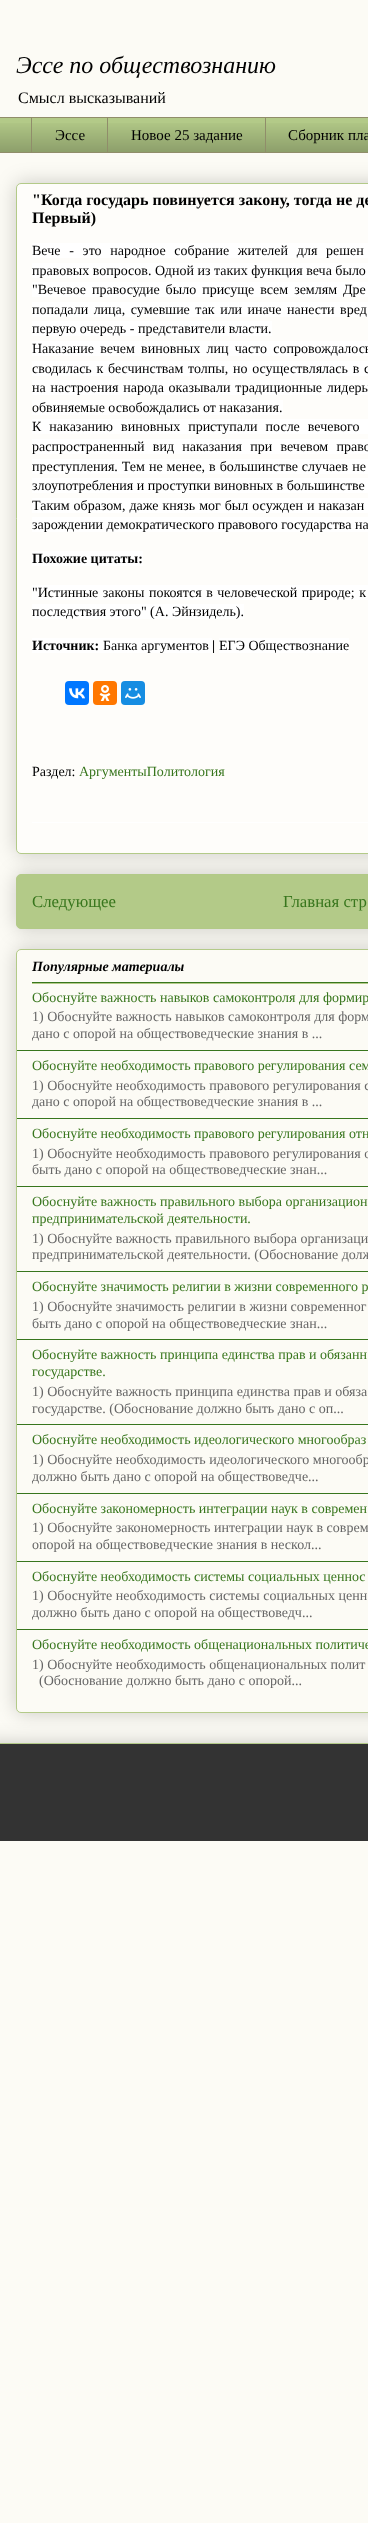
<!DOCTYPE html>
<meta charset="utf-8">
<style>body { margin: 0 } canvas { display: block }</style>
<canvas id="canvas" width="368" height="2523"></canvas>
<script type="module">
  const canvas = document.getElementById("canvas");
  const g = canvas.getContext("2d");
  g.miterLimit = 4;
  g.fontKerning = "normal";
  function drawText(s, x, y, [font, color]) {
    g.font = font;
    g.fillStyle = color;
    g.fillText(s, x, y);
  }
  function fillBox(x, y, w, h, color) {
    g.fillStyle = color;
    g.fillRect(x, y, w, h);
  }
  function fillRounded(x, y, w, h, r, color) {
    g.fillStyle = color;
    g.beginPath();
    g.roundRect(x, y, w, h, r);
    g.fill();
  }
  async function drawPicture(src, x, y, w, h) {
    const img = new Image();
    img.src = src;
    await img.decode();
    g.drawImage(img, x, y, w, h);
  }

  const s1 = ["italic 24px Liberation Serif", "#000000"];
  const s2 = ["16px Liberation Serif", "#000000"];
  const s3 = ["15px Liberation Serif", "#000000"];
  const s4 = ["bold 16px Liberation Serif", "#000000"];
  const s5 = ["14px Liberation Serif", "#000000"];
  const s6 = ["bold 14px Liberation Serif", "#000000"];
  const s7 = ["14px Liberation Serif", "#38761D"];
  const s8 = ["16.75px Liberation Serif", "#38761D"];
  const s9 = ["italic bold 14px Liberation Serif", "#000000"];
  const s10 = ["14px Liberation Serif", "#666666"];

  fillBox(0, 0, 368, 2523, "#FCFBF5");
  drawText("Эссе по обществознанию", 16, 73, s1);
  drawText("Смысл высказываний", 18, 103, s2);
  fillBox(0, 118, 368, 34, "#B3CA88");
  await drawPicture("pic1.png", 0, 123, 368, 29);
  fillBox(0, 117, 368, 1, "#908D6A");
  fillBox(31, 117, 1, 36, "#908D6A");
  drawText("Эссе", 55, 140, s3);
  fillBox(107, 117, 1, 36, "#908D6A");
  drawText("Новое 25 задание", 131, 140, s3);
  fillBox(265, 117, 1, 36, "#908D6A");
  drawText("Сборник пла", 288, 140, s3);
  fillBox(0, 152, 368, 1, "#908D6A");
  g.fillStyle = "rgba(0, 0, 0, 0.2)";
  g.filter = "blur(10px)";
  g.beginPath();
  g.roundRect(16, 874, 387, 55, 5);
  g.fill();
  g.filter = "none";
  g.fillStyle = "#B3CA88";
  g.beginPath();
  g.roundRect(16.5, 874.5, 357, 54, 4.5);
  g.fill();
  g.strokeStyle = "#B3CA88";
  g.stroke();
  g.fillStyle = "rgba(0, 0, 0, 0.2)";
  g.filter = "blur(10px)";
  g.beginPath();
  g.roundRect(16, 183, 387, 671, 5);
  g.fill();
  g.filter = "none";
  g.fillStyle = "#FEFDFA";
  g.beginPath();
  g.roundRect(16.5, 183.5, 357, 670, 4.5);
  g.fill();
  g.stroke();
  drawText("\"Когда государь повинуется закону, тогда не де", 32, 205, s4);
  drawText("Первый)", 32, 223, s4);
  fillBox(32, 243, 336, 15, "#FFFFFF");
  g.wordSpacing = "5.25px";
  drawText("Вече - это народное собрание жителей для решен", 32, 255, s5);
  fillBox(32, 263, 336, 15, "#FFFFFF");
  g.wordSpacing = "0px";
  drawText("правовых вопросов. Одной из таких функция веча было", 32, 275, s5);
  fillBox(32, 282, 336, 15, "#FFFFFF");
  g.wordSpacing = "2.5px";
  drawText("\"Вечевое правосудие было присуще всем землям Дре", 32, 294, s5);
  fillBox(32, 302, 336, 15, "#FFFFFF");
  g.wordSpacing = "2px";
  drawText("попадали лица, сумевшие так или иначе нанести вред", 32, 314, s5);
  fillBox(32, 321, 240, 15, "#FFFFFF");
  g.wordSpacing = "0px";
  drawText("первую очередь - представители власти.", 32, 333, s5);
  fillBox(32, 341, 336, 15, "#FFFFFF");
  g.wordSpacing = "2.75px";
  drawText("Наказание вечем виновных лиц часто сопровождалось", 32, 353, s5);
  fillBox(32, 361, 336, 15, "#FFFFFF");
  g.wordSpacing = "1.25px";
  drawText("сводилась к бесчинствам толпы, но осуществлялась в с", 32, 373, s5);
  fillBox(32, 380, 336, 15, "#FFFFFF");
  drawText("на настроения народа оказывали традиционные лидеры", 32, 392, s5);
  fillBox(32, 400, 251, 15, "#FFFFFF");
  g.wordSpacing = "0px";
  drawText("обвиняемые освобождались от наказания.", 32, 412, s5);
  fillBox(32, 419, 336, 15, "#FFFFFF");
  g.wordSpacing = "4.5px";
  drawText("К наказанию виновных приступали после вечевого", 32, 431, s5);
  fillBox(32, 439, 336, 15, "#FFFFFF");
  g.wordSpacing = "4.75px";
  drawText("распространенный вид наказания при вечевом право", 32, 451, s5);
  fillBox(32, 459, 336, 15, "#FFFFFF");
  g.wordSpacing = "0.5px";
  drawText("преступления. Тем не менее, в большинстве случаев не", 32, 471, s5);
  fillBox(32, 478, 336, 15, "#FFFFFF");
  g.wordSpacing = "0px";
  drawText("злоупотребления и проступки виновных в большинстве", 32, 490, s5);
  fillBox(32, 498, 336, 15, "#FFFFFF");
  g.wordSpacing = "0.5px";
  drawText("Таким образом, даже князь мог был осужден и наказан", 32, 510, s5);
  fillBox(32, 517, 336, 15, "#FFFFFF");
  g.wordSpacing = "0px";
  drawText("зарождении демократического правового государства на", 32, 529, s5);
  fillBox(32, 551, 111, 15, "#FFFFFF");
  drawText("Похожие цитаты:", 32, 563, s6);
  fillBox(32, 585, 336, 15, "#FFFFFF");
  g.wordSpacing = "1px";
  drawText("\"Истинные законы покоятся в человеческой природе; к", 32, 597, s5);
  fillBox(32, 604, 212, 15, "#FFFFFF");
  g.wordSpacing = "0px";
  drawText("последствия этого\" (А. Эйнзидель).", 32, 616, s5);
  fillBox(32, 638, 180, 15, "#FFFFFF");
  drawText("Источник:", 32, 650, s6);
  drawText("Банка аргументов", 103, 650, s5);
  drawText("|", 212, 650, s6);
  fillBox(219, 638, 130, 15, "#FFFFFF");
  drawText("ЕГЭ Обществознание", 219, 650, s5);
  fillRounded(65, 681, 24, 24, 4, "#0077FF");
  await drawPicture("pic2.png", 69, 688, 16, 11);
  fillRounded(93, 681, 24, 24, 4, "#FF7700");
  await drawPicture("pic3.png", 99, 685, 12, 16);
  fillRounded(121, 681, 24, 24, 4, "#168DE2");
  await drawPicture("pic4.png", 125, 688, 16, 11);
  drawText("Раздел:", 32, 776, s5);
  drawText("АргументыПолитология", 79, 776, s7);
  fillBox(32, 822, 336, 1, "#FFFFFF");
  drawText("Следующее", 32, 907, s8);
  drawText("Главная стр", 283, 907, s8);
  g.fillStyle = "rgba(0, 0, 0, 0.2)";
  g.filter = "blur(10px)";
  g.beginPath();
  g.roundRect(16, 949, 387, 764, 5);
  g.fill();
  g.filter = "none";
  g.fillStyle = "#FCFBF5";
  g.beginPath();
  g.roundRect(16.5, 949.5, 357, 763, 4.5);
  g.fill();
  g.stroke();
  fillBox(32, 982, 336, 1, "#38761D");
  drawText("Популярные материалы", 32, 971, s9);
  fillBox(32, 983, 336, 1, "#B3CA88");
  fillBox(17, 1050, 351, 1, "#38761D");
  drawText("Обоснуйте важность навыков самоконтроля для формир", 32, 1002, s7);
  drawText("1) Обоснуйте важность навыков самоконтроля для форм", 32, 1021, s10);
  drawText("дано с опорой на обществоведческие знания в ...", 32, 1038, s10);
  fillBox(17, 1118, 351, 1, "#38761D");
  drawText("Обоснуйте необходимость правового регулирования сем", 32, 1070, s7);
  drawText("1) Обоснуйте необходимость правового регулирования с", 32, 1090, s10);
  drawText("дано с опорой на обществоведческие знания в ...", 32, 1106, s10);
  fillBox(17, 1186, 351, 1, "#38761D");
  drawText("Обоснуйте необходимость правового регулирования отн", 32, 1138, s7);
  drawText("1) Обоснуйте необходимость правового регулирования о", 32, 1158, s10);
  drawText("быть дано с опорой на обществоведческие знан...", 32, 1174, s10);
  fillBox(17, 1271, 351, 1, "#38761D");
  drawText("Обоснуйте важность правильного выбора организацион", 32, 1206, s7);
  drawText("предпринимательской деятельности.", 32, 1223, s7);
  drawText("1) Обоснуйте важность правильного выбора организаци", 32, 1243, s10);
  drawText("предпринимательской деятельности. (Обоснование долж", 32, 1259, s10);
  fillBox(17, 1339, 351, 1, "#38761D");
  drawText("Обоснуйте значимость религии в жизни современного р", 32, 1291, s7);
  drawText("1) Обоснуйте значимость религии в жизни современног", 32, 1311, s10);
  drawText("быть дано с опорой на обществоведческие знан...", 32, 1328, s10);
  fillBox(17, 1424, 351, 1, "#38761D");
  drawText("Обоснуйте важность принципа единства прав и обязанн", 32, 1359, s7);
  drawText("государстве.", 32, 1376, s7);
  drawText("1) Обоснуйте важность принципа единства прав и обяза", 32, 1396, s10);
  drawText("государстве. (Обоснование должно быть дано с оп...", 32, 1413, s10);
  fillBox(17, 1493, 351, 1, "#38761D");
  drawText("Обоснуйте необходимость идеологического многообраз", 32, 1444, s7);
  drawText("1) Обоснуйте необходимость идеологического многообр", 32, 1464, s10);
  drawText("должно быть дано с опорой на обществоведче...", 32, 1481, s10);
  fillBox(17, 1561, 351, 1, "#38761D");
  drawText("Обоснуйте закономерность интеграции наук в современ", 32, 1513, s7);
  drawText("1) Обоснуйте закономерность интеграции наук в соврем", 32, 1532, s10);
  drawText("опорой на обществоведческие знания в нескол...", 32, 1549, s10);
  fillBox(17, 1629, 351, 1, "#38761D");
  drawText("Обоснуйте необходимость системы социальных ценнос", 32, 1581, s7);
  drawText("1) Обоснуйте необходимость системы социальных ценн", 32, 1600, s10);
  drawText("должно быть дано с опорой на обществоведч...", 32, 1617, s10);
  drawText("Обоснуйте необходимость общенациональных политиче", 32, 1649, s7);
  drawText("1) Обоснуйте необходимость общенациональных полит", 32, 1669, s10);
  drawText("(Обоснование должно быть дано с опорой...", 39, 1685, s10);
  g.save();
  g.beginPath();
  g.rect(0, 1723, 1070, 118);
  g.clip();
  g.fillStyle = "rgba(0, 0, 0, 0.2)";
  g.filter = "blur(10px)";
  g.beginPath();
  g.rect(-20, 1743, 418, 98);
  g.fill();
  g.filter = "none";
  g.restore();
  fillBox(0, 1744, 368, 97, "#333333");
  fillBox(0, 1743, 368, 1, "#B3CA88");
</script>
